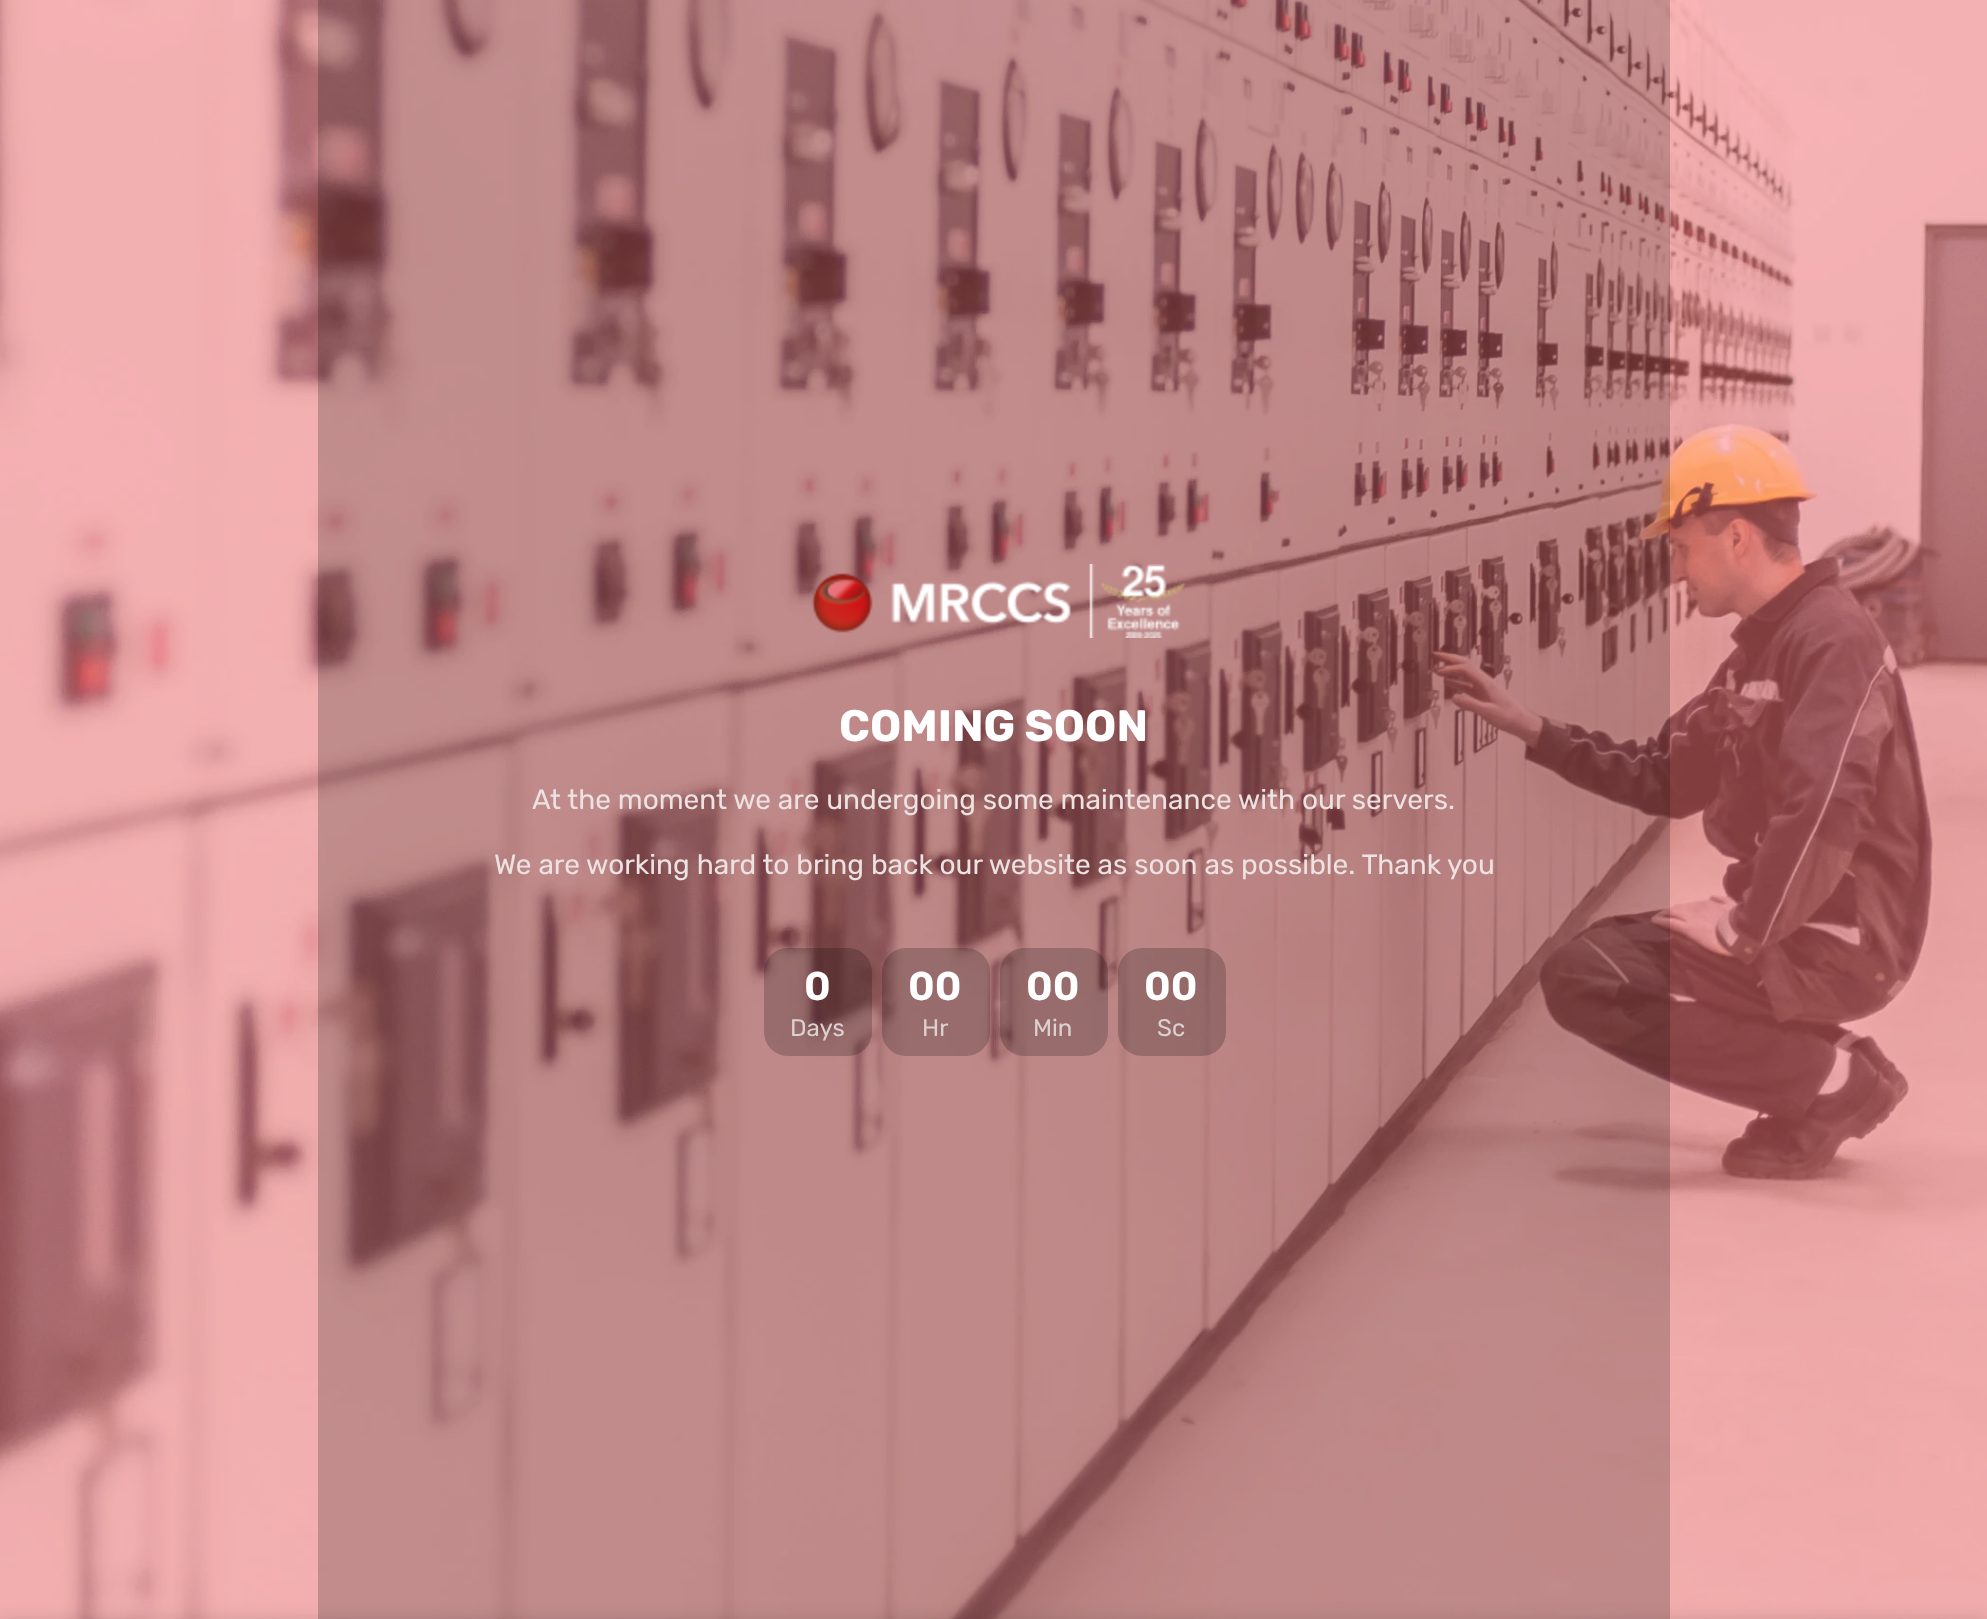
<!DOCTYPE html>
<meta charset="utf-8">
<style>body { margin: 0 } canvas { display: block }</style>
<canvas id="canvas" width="1987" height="1619"></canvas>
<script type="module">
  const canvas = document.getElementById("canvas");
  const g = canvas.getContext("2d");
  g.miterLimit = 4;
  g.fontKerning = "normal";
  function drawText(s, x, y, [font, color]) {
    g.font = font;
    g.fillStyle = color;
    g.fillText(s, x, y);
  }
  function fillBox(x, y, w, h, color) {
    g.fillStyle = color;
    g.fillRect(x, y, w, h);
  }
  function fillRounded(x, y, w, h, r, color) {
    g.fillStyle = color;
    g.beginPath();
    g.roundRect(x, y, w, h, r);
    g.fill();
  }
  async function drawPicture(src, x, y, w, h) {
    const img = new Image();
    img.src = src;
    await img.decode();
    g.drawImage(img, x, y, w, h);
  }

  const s1 = ["bold 44px Rubik", "#FFFFFF"];
  const s2 = ["28px Rubik", "#EDE2E2"];
  const s3 = ["600 40px Rubik", "#FFFFFF"];
  const s4 = ["24px Rubik", "#DDD0D0"];

  fillBox(0, 0, 1987, 1619, "#FFFFFF");
  await drawPicture("pic1.png", 0, 0, 1987, 1619);
  fillBox(318, 0, 1352, 1619, "rgba(0, 0, 0, 0.2)");
  await drawPicture("pic2.png", 811, 564, 375, 74);
  drawText("COMING SOON", 839, 741, s1);
  drawText("At the moment we are undergoing some maintenance with our servers.", 532, 809, s2);
  drawText("We are working hard to bring back our website as soon as possible. Thank you", 494, 874, s2);
  fillRounded(764, 948, 108, 108, 24, "rgba(0, 0, 0, 0.2)");
  drawText("0", 804, 1000, s3);
  drawText("Days", 790, 1036, s4);
  fillRounded(882, 948, 108, 108, 24, "rgba(0, 0, 0, 0.2)");
  drawText("00", 908, 1000, s3);
  drawText("Hr", 922, 1036, s4);
  fillRounded(1000, 948, 108, 108, 24, "rgba(0, 0, 0, 0.2)");
  drawText("00", 1026, 1000, s3);
  drawText("Min", 1033, 1036, s4);
  fillRounded(1118, 948, 108, 108, 24, "rgba(0, 0, 0, 0.2)");
  drawText("00", 1144, 1000, s3);
  drawText("Sc", 1157, 1036, s4);
  g.fillStyle = "rgba(0, 0, 0, 0.14)";
  g.filter = "blur(9px)";
  g.beginPath();
  g.rect(0, 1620, 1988, 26);
  g.fill();
  g.filter = "none";
</script>
